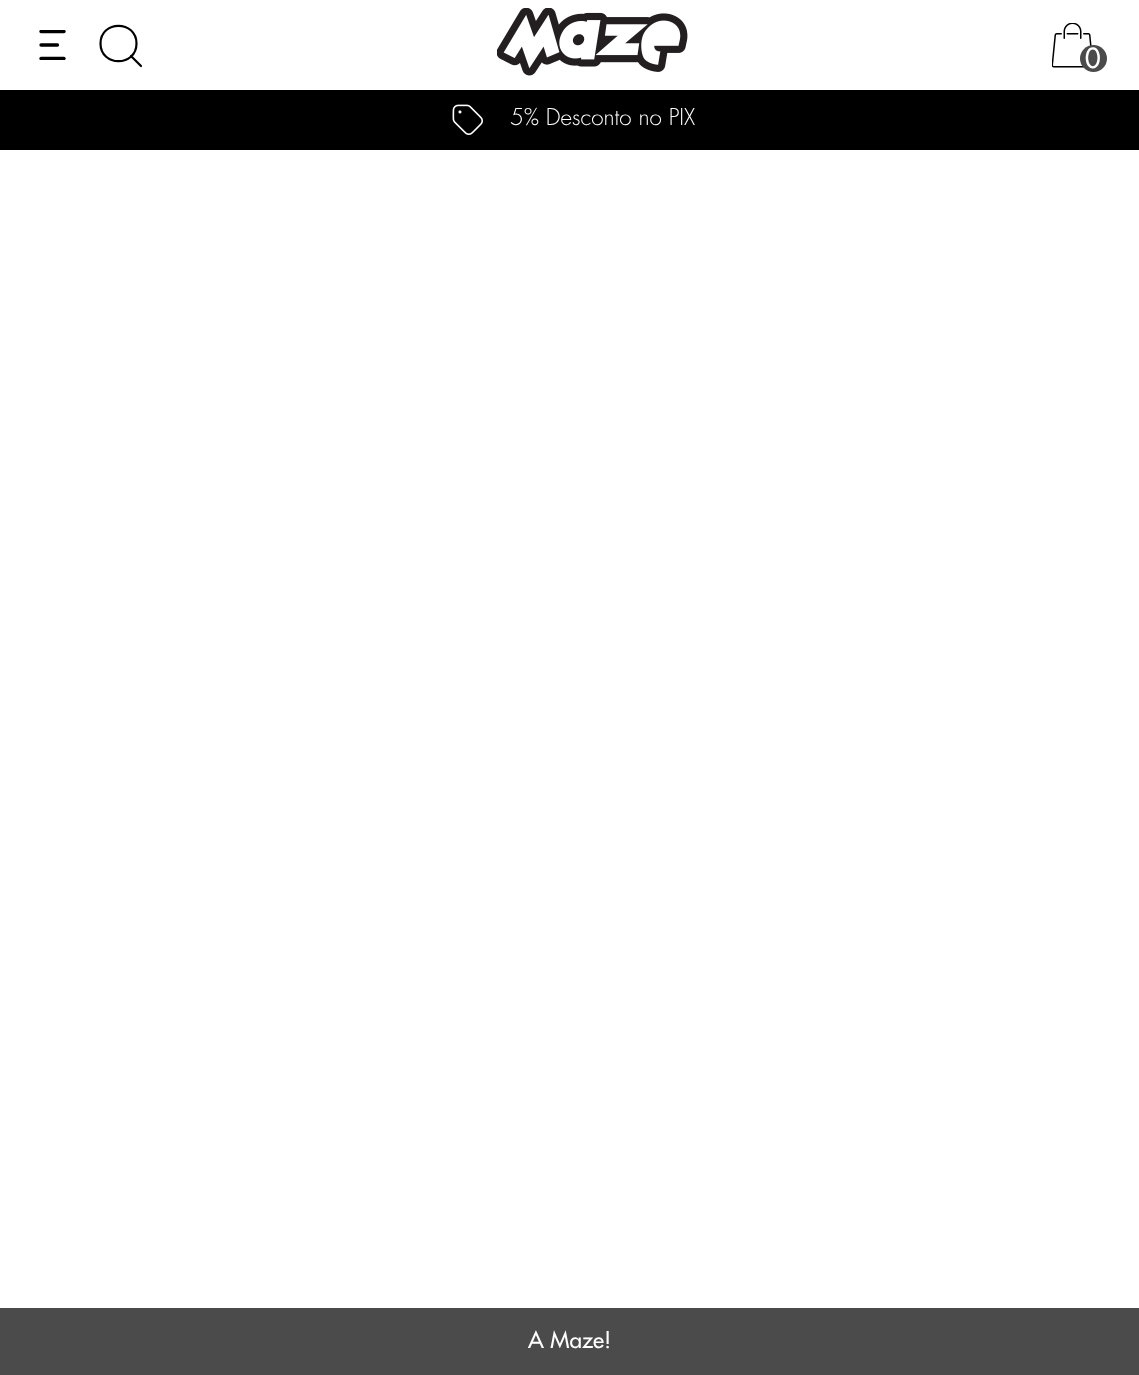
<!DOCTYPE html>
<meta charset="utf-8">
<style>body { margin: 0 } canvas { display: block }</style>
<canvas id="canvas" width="1139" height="1375"></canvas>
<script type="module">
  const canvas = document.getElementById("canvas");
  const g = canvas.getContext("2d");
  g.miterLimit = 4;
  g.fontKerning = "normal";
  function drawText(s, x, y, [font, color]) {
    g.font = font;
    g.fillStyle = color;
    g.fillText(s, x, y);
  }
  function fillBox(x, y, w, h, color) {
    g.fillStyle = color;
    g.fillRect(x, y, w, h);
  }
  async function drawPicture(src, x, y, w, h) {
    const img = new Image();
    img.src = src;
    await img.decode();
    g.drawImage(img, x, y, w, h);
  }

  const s1 = ["500 27px Futura", "#FFFFFF"];
  const s2 = ["500 22.5px Futura", "#FFFFFF"];
  const s3 = ["300 22.5px Futura", "#FFFFFF"];

  fillBox(0, 0, 1139, 1375, "#FFFFFF");
  g.save();
  g.beginPath();
  g.rect(38, 30, 30, 30);
  g.clip();
  g.beginPath();
  g.moveTo(41, 58.5);
  g.lineTo(64, 58.5);
  g.strokeStyle = "#000000";
  g.lineWidth = 3.3;
  g.lineCap = "round";
  g.stroke();
  g.restore();
  g.beginPath();
  g.moveTo(41, 45);
  g.lineTo(57.5, 45);
  g.strokeStyle = "#000000";
  g.lineWidth = 3.3;
  g.lineCap = "round";
  g.stroke();
  g.save();
  g.beginPath();
  g.rect(38, 30, 30, 30);
  g.clip();
  g.beginPath();
  g.moveTo(41, 31.5);
  g.lineTo(64, 31.5);
  g.stroke();
  g.restore();
  g.beginPath();
  g.moveTo(141, 66);
  g.lineTo(131, 56);
  g.moveTo(136.5, 43.5);
  g.bezierCurveTo(136.5, 67, 100.5, 67, 100.5, 43.5);
  g.bezierCurveTo(100.5, 20, 136.5, 20, 136.5, 43.5);
  g.closePath();
  g.lineWidth = 2.2;
  g.lineJoin = "round";
  g.stroke();
  await drawPicture("pic1.png", 497, 8, 191, 68);
  await drawPicture("pic2.png", 1052, 23, 40, 45);
  g.fillStyle = "#4B4B4B";
  g.beginPath();
  g.arc(1093.5, 58.5, 13.5, 0, Math.PI * 2);
  g.fill();
  drawText("0", 1085, 68, s1);
  fillBox(0, 1308, 1139, 67, "#4B4B4B");
  drawText("A Maze!", 528, 1348, s2);
  fillBox(0, 90, 1139, 60, "#000000");
  await drawPicture("pic3.png", 452, 104, 31, 31);
  drawText("5% Desconto no PIX", 510, 125, s3);
</script>
